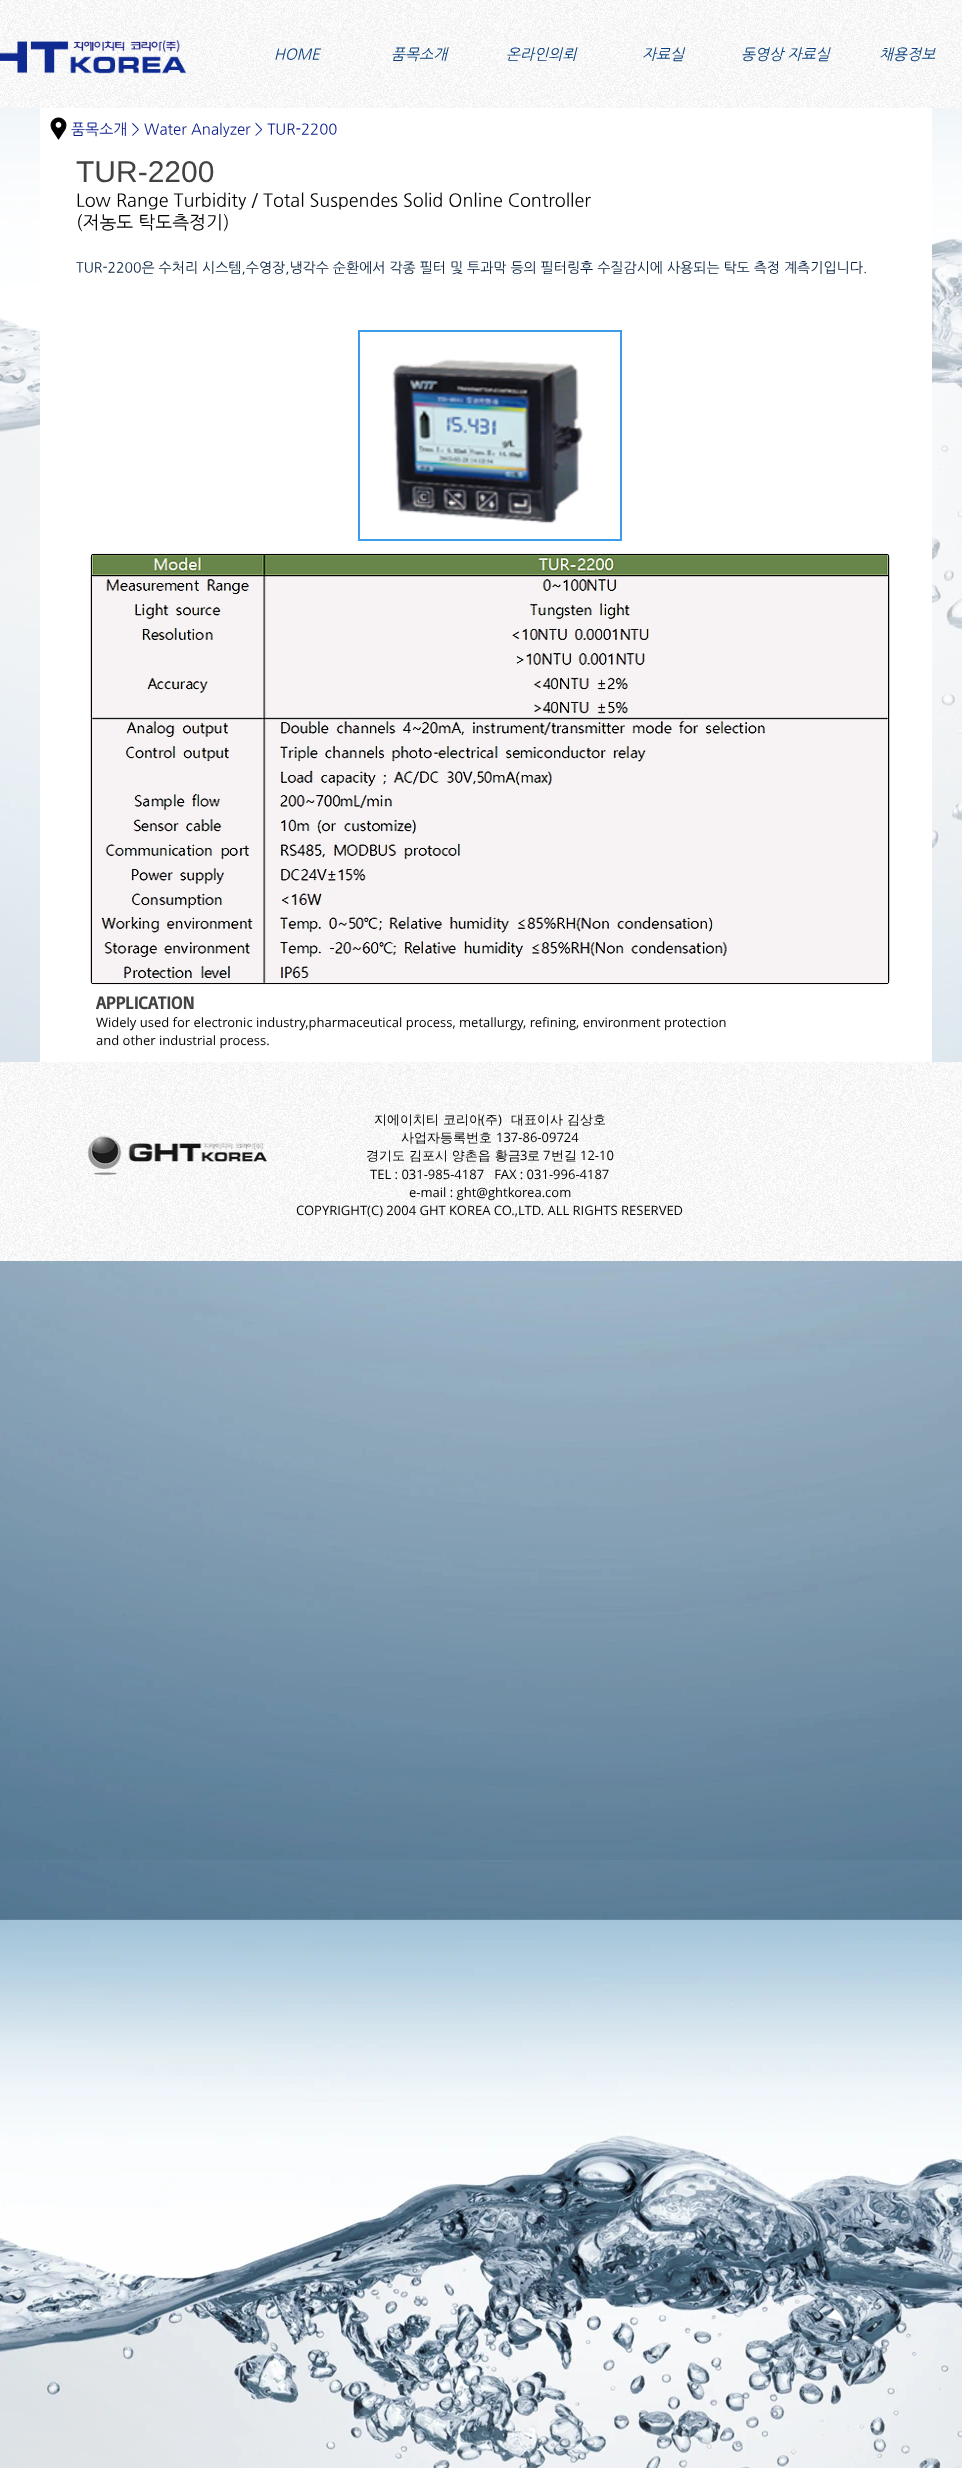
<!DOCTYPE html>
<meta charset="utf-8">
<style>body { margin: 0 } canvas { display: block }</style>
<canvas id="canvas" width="962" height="2468"></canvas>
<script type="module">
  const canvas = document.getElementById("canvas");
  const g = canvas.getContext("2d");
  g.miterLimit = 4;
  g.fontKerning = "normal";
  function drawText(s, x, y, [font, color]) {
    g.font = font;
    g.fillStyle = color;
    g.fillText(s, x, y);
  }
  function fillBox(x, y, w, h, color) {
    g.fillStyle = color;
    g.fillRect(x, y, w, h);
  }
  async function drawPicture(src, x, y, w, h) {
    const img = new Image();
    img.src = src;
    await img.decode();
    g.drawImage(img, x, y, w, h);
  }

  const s1 = ["italic 15px NanumGothic", "#093F7C"];
  const s2 = ["15px NanumGothic", "#091B8B"];
  const s3 = ["30px Liberation Sans", "#424242"];
  const s4 = ["18px NanumGothic", "#000000"];
  const s5 = ["14px NanumGothic", "#041F3E"];
  const s6 = ["bold 18px Basic", "#424242"];
  const s7 = ["13px Open Sans", "#000000"];
  const s8 = ["500 13px WenQuanYi Zen Hei", "#000000"];

  fillBox(0, 0, 962, 2468, "#FFFFFF");
  await drawPicture("pic1.png", 0, 0, 962, 108);
  await drawPicture("pic2.png", 0, 40, 186, 34);
  drawText("HOME", 274, 59, s1);
  drawText("품목소개", 391, 59, s1);
  drawText("온라인의뢰", 506, 59, s1);
  drawText("자료실", 642, 59, s1);
  drawText("동영상 자료실", 741, 59, s1);
  drawText("채용정보", 879, 59, s1);
  await drawPicture("pic8.png", 0, 108, 962, 2360);
  fillBox(0, 108, 962, 954, "rgba(255, 255, 255, 0.6)");
  fillBox(40, 108, 892, 954, "#FFFFFF");
  await drawPicture("pic3.png", 50, 117, 17, 23);
  drawText("품목소개 > Water Analyzer > TUR-2200", 71, 134, s2);
  drawText("TUR-2200", 76, 182, s3);
  drawText("Low Range Turbidity / Total Suspendes Solid Online Controller", 76, 206, s4);
  drawText("(저농도 탁도측정기)", 76, 228, s4);
  drawText("TUR-2200은 수처리 시스템,수영장,냉각수 순환에서 각종 필터 및 투과막 등의 필터링후 수질감시에 사용되는 탁도 측정 계측기입니다.", 76, 272, s5);
  g.strokeStyle = "#3D9BE9";
  g.lineWidth = 2;
  g.strokeRect(359, 331, 262, 209);
  await drawPicture("pic4.png", 392, 359, 192, 165);
  await drawPicture("pic5.png", 90, 553, 800, 432);
  drawText("APPLICATION", 96, 1009, s6);
  drawText("Widely used for electronic industry,pharmaceutical process, metallurgy, refining, environment protection", 96, 1027, s7);
  drawText("and other industrial process.", 96, 1045, s7);
  fillBox(0, 1062, 962, 199, "#FFFFFF");
  await drawPicture("pic6.png", 0, 1062, 962, 199);
  await drawPicture("pic7.png", 87, 1135, 180, 40);
  drawText("지에이치티 코리아", 374, 1124, s8);
  drawText("(", 481, 1124, s7);
  drawText("주", 485, 1124, s8);
  drawText(")", 498, 1124, s7);
  drawText("대표이사 김상호", 511, 1124, s8);
  drawText("사업자등록번호", 401, 1142, s8);
  drawText("137-86-09724", 496, 1142, s7);
  drawText("경기도 김포시 양촌읍 황금", 366, 1160, s8);
  drawText("3", 520, 1160, s7);
  drawText("로", 527, 1160, s8);
  drawText("7", 543, 1160, s7);
  drawText("번길", 551, 1160, s8);
  drawText("12-10", 580, 1160, s7);
  drawText("TEL : 031-985-4187   FAX : 031-996-4187", 370, 1179, s7);
  drawText("e-mail : ght@ghtkorea.com", 409, 1197, s7);
  drawText("COPYRIGHT(C) 2004 GHT KOREA CO.,LTD. ALL RIGHTS RESERVED", 296, 1215, s7);
</script>
